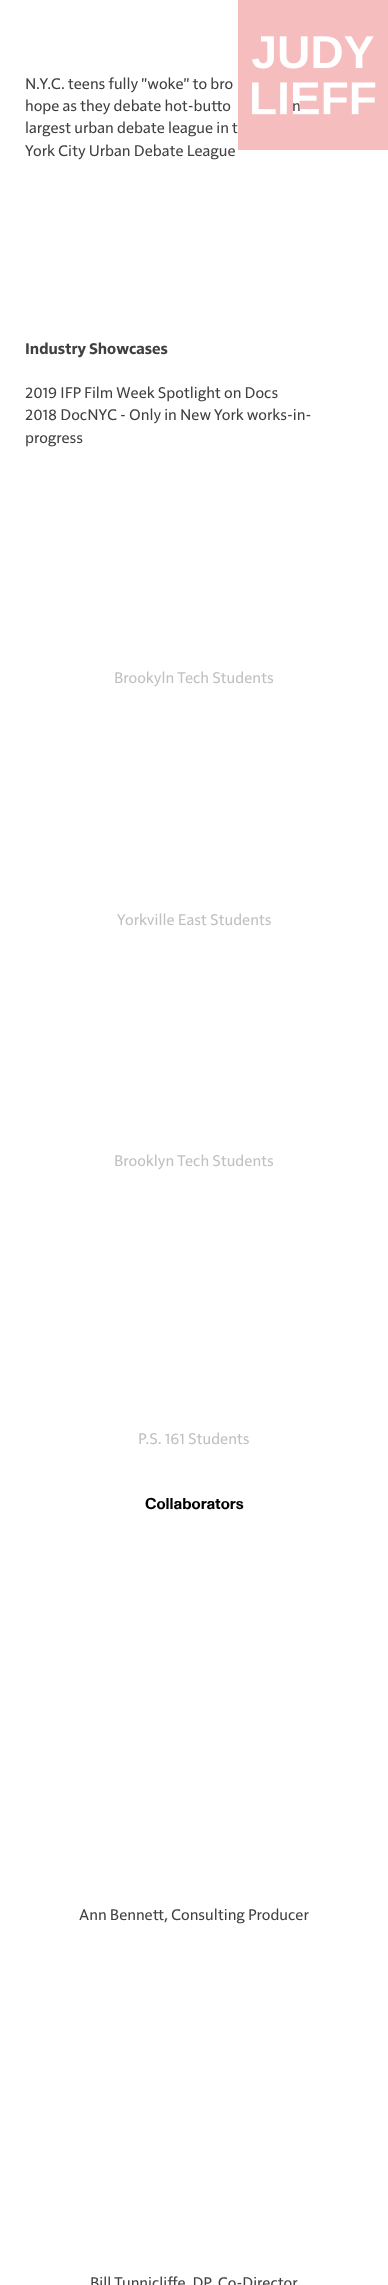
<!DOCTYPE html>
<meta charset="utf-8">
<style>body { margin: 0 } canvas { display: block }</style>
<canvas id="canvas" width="388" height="2285"></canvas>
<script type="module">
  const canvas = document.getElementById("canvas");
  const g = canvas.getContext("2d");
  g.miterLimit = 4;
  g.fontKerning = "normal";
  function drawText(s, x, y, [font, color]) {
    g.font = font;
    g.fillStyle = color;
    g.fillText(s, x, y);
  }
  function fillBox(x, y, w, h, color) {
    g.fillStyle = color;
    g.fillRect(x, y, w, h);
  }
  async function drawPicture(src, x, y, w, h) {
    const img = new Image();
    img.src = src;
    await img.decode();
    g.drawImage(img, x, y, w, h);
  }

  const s1 = ["15.8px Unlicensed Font", "#404040"];
  const s2 = ["bold 15.8px Unlicensed Font", "#404040"];
  const s3 = ["15.8px Unlicensed Font", "#C0C0C0"];
  const s4 = ["bold 15.8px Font", "#000000"];

  fillBox(0, 0, 388, 2285, "#FFFFFF");
  drawText("N.Y.C. teens fully \"woke\" to bro", 25, 89, s1);
  drawText("hope as they debate hot-butto", 25, 111, s1);
  drawText("n", 292, 111, s1);
  drawText("largest urban debate league in t", 25, 133, s1);
  drawText("York City Urban Debate League", 25, 156, s1);
  drawText("Industry Showcases", 25, 354, s2);
  drawText("2019 IFP Film Week Spotlight on Docs", 25, 398, s1);
  drawText("2018 DocNYC - Only in New York works-in-", 25, 420, s1);
  drawText("progress", 25, 443, s1);
  drawText("Brookyln Tech Students", 114, 683, s3);
  drawText("Yorkville East Students", 117, 925, s3);
  drawText("Brooklyn Tech Students", 114, 1166, s3);
  drawText("P.S. 161 Students", 138, 1444, s3);
  drawText("Collaborators", 145, 1509, s4);
  drawText("Ann Bennett, Consulting Producer", 79, 1920, s1);
  drawText("Bill Tunnicliffe, DP, Co-Director", 90, 2288, s1);
  await drawPicture("pic1.png", 238, 0, 150, 150);
</script>
